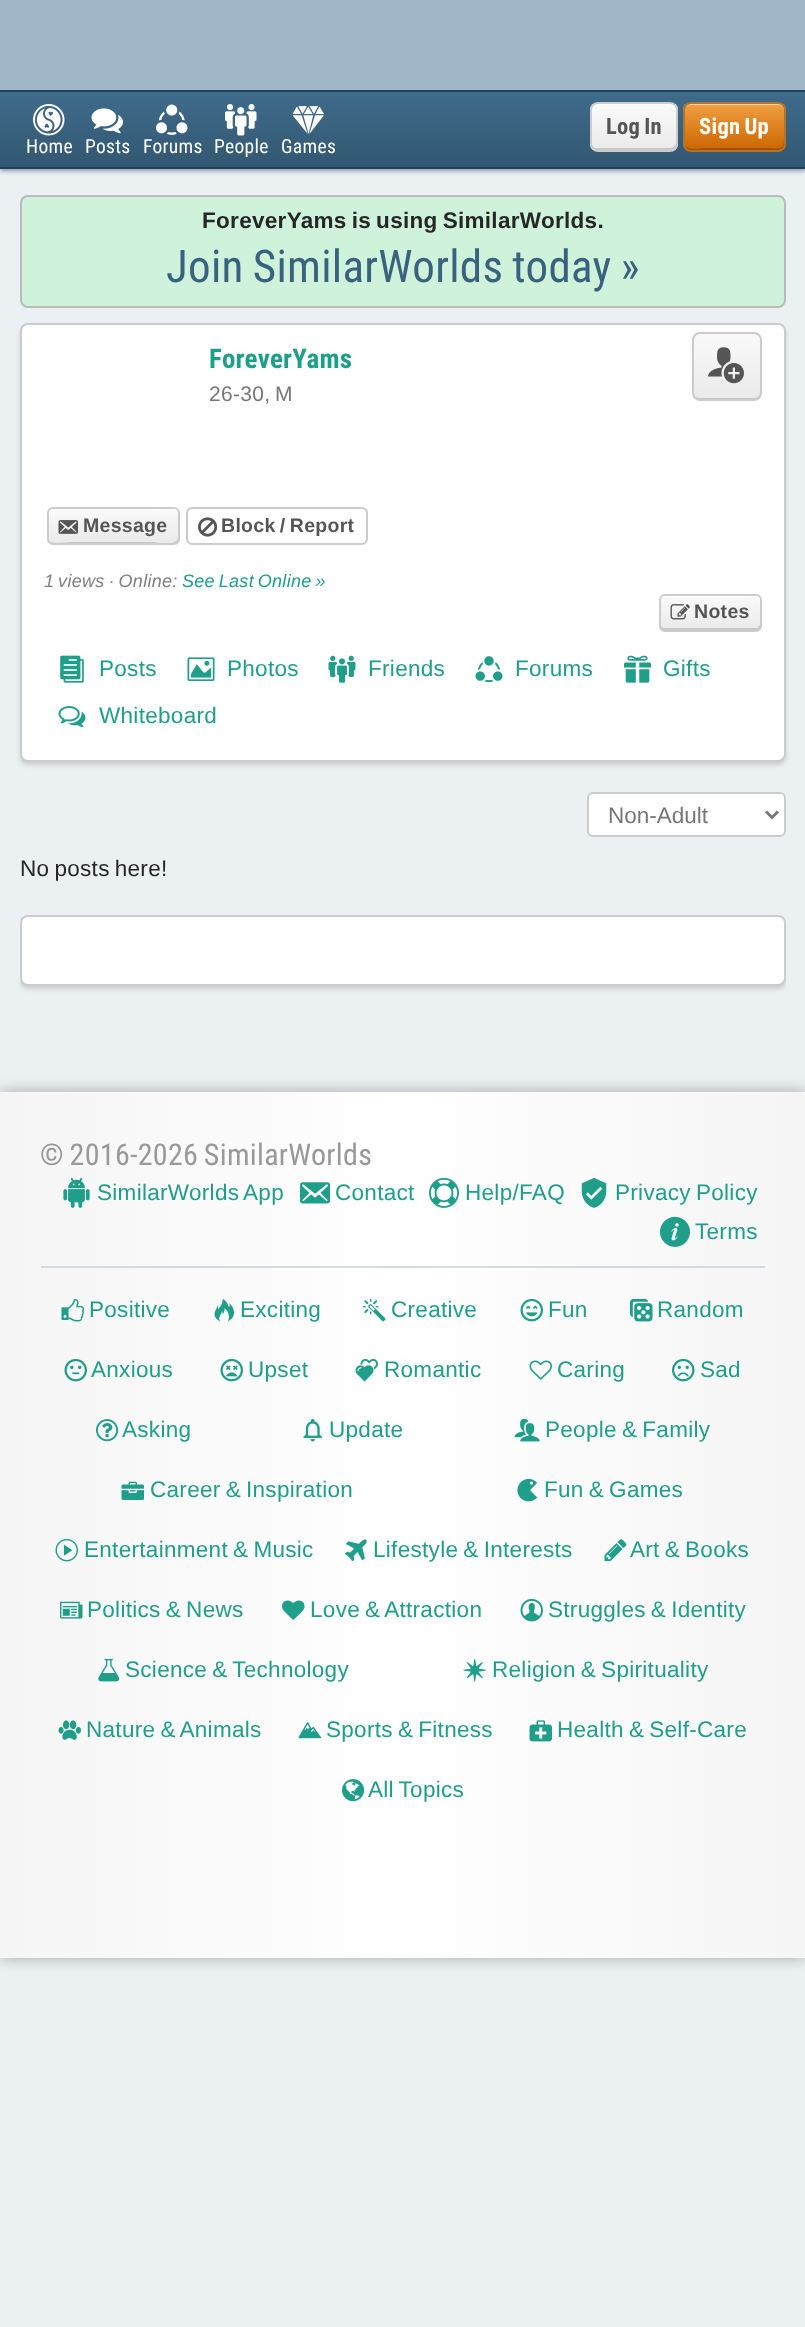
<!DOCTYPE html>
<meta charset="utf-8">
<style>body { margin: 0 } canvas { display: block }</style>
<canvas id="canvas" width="805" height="2327"></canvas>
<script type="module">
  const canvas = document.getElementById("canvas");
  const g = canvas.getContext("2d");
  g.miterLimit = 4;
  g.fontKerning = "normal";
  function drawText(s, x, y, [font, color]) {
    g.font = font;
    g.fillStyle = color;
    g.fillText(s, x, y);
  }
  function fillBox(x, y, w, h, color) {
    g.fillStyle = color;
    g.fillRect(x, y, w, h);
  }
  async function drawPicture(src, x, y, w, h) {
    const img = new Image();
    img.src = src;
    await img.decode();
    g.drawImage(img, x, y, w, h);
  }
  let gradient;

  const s1 = ["bold 22.5px Roboto Condensed", "#555555"];
  const s2 = ["bold 22.5px Roboto Condensed", "#FFFFFF"];
  const s3 = ["19.5px Roboto Condensed", "#FFFFFF"];
  const s4 = ["bold 22.5px Liberation Sans", "#262626"];
  const s5 = ["45px Roboto Condensed", "#39627F"];
  const s6 = ["bold 27px Roboto Condensed", "#1F9E89"];
  const s7 = ["21px Liberation Sans", "#777777"];
  const s8 = ["bold 19.5px Liberation Sans", "#555555"];
  const s9 = ["italic 18px Liberation Sans", "#808080"];
  const s10 = ["italic 18px Liberation Sans", "#1F9E89"];
  const s11 = ["22.5px Liberation Sans", "#1F9E89"];
  const s12 = ["22.5px Liberation Sans", "#777777"];
  const s13 = ["22.5px Liberation Sans", "#262626"];
  const s14 = ["30px Roboto Condensed", "#999999"];

  fillBox(0, 0, 805, 2327, "#EBF0F2");
  g.fillStyle = "rgba(38, 68, 89, 0.5)";
  g.filter = "blur(2px)";
  g.beginPath();
  g.rect(0, 93, 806, 78);
  g.fill();
  g.filter = "none";
  fillBox(0, 0, 805, 90, "#9FB7C7");
  gradient = g.createLinearGradient(403, 91, 403, 167);
  gradient.addColorStop(0, "#3F6C8C");
  gradient.addColorStop(1, "#325771");
  g.fillStyle = gradient;
  g.fillRect(0, 92, 805, 75);
  fillBox(0, 90, 805, 2, "#1F425C");
  fillBox(0, 167, 805, 2, "#1F425C");
  g.save();
  g.beginPath();
  g.roundRect(590, 102, 88, 50, 8);
  g.clip();
  gradient = g.createLinearGradient(634, 104, 634, 150);
  gradient.addColorStop(0, "#FAFAFA");
  gradient.addColorStop(1, "#EAEAEA");
  g.fillStyle = gradient;
  g.fillRect(590, 104, 88, 46);
  g.restore();
  g.fillStyle = "rgba(0, 0, 0, 0.15)";
  g.beginPath();
  g.moveTo(591, 142);
  g.lineTo(591, 144);
  g.bezierCurveTo(591, 147, 594, 150, 597, 150);
  g.lineTo(671, 150);
  g.bezierCurveTo(674, 150, 677, 147, 677, 144);
  g.lineTo(677, 110);
  g.bezierCurveTo(677, 109, 677, 107, 676, 106);
  g.lineTo(676, 131);
  g.bezierCurveTo(676, 136, 679, 148, 670, 148);
  g.lineTo(595, 148);
  g.bezierCurveTo(592, 147, 591, 145, 591, 142);
  g.closePath();
  g.fill();
  g.fillStyle = "#FFFFFF";
  g.beginPath();
  g.moveTo(597, 105);
  g.lineTo(670, 105);
  g.bezierCurveTo(679, 105, 676, 118, 676, 123);
  g.lineTo(676, 148);
  g.bezierCurveTo(677, 147, 677, 145, 677, 144);
  g.lineTo(677, 110);
  g.bezierCurveTo(677, 107, 674, 104, 671, 104);
  g.lineTo(597, 104);
  g.bezierCurveTo(594, 104, 591, 107, 591, 110);
  g.lineTo(591, 111);
  g.bezierCurveTo(591, 108, 594, 105, 597, 105);
  g.closePath();
  g.fill();
  g.beginPath();
  g.roundRect(591, 103, 86, 48, 7);
  g.strokeStyle = "#CCCCCC";
  g.lineWidth = 2;
  g.stroke();
  g.letterSpacing = "0.3px";
  g.wordSpacing = "-1.5px";
  drawText("Log In", 606, 134, s1);
  g.save();
  g.beginPath();
  g.roundRect(683, 102, 103, 50, 8);
  g.clip();
  gradient = g.createLinearGradient(734, 104, 734, 150);
  gradient.addColorStop(0, "#F09F42");
  gradient.addColorStop(1, "#CC6600");
  g.fillStyle = gradient;
  g.fillRect(683, 104, 103, 46);
  g.restore();
  g.fillStyle = "rgba(0, 0, 0, 0.2)";
  g.beginPath();
  g.moveTo(684, 142);
  g.lineTo(684, 144);
  g.bezierCurveTo(684, 147, 687, 150, 690, 150);
  g.lineTo(779, 150);
  g.bezierCurveTo(782, 150, 785, 147, 785, 144);
  g.lineTo(785, 110);
  g.bezierCurveTo(785, 109, 785, 107, 784, 106);
  g.lineTo(784, 131);
  g.bezierCurveTo(784, 151, 785, 148, 763, 148);
  g.lineTo(705, 148);
  g.bezierCurveTo(701, 148, 684, 152, 684, 142);
  g.closePath();
  g.fill();
  g.fillStyle = "rgba(255, 255, 255, 0.5)";
  g.beginPath();
  g.moveTo(690, 105);
  g.lineTo(778, 105);
  g.bezierCurveTo(787, 105, 784, 118, 784, 123);
  g.lineTo(784, 148);
  g.bezierCurveTo(785, 147, 785, 145, 785, 144);
  g.lineTo(785, 110);
  g.bezierCurveTo(785, 107, 782, 104, 779, 104);
  g.lineTo(690, 104);
  g.bezierCurveTo(687, 104, 684, 107, 684, 110);
  g.lineTo(684, 111);
  g.bezierCurveTo(684, 108, 687, 105, 690, 105);
  g.closePath();
  g.fill();
  g.beginPath();
  g.roundRect(684, 103, 101, 48, 7);
  g.strokeStyle = "#B2742C";
  g.stroke();
  drawText("Sign Up", 699, 134, s2);
  await drawPicture("pic1.png", 33, 104, 32, 32);
  g.wordSpacing = "0px";
  drawText("Home", 26, 153, s3);
  await drawPicture("pic2.png", 91, 108, 32, 26);
  drawText("Posts", 85, 153, s3);
  await drawPicture("pic3.png", 156, 104, 32, 31);
  drawText("Forums", 143, 153, s3);
  await drawPicture("pic4.png", 225, 104, 32, 32);
  drawText("People", 214, 153, s3);
  await drawPicture("pic5.png", 292, 106, 32, 28);
  drawText("Games", 281, 153, s3);
  g.fillStyle = "#CEF3DA";
  g.beginPath();
  g.roundRect(21, 196, 764, 111, 7);
  g.fill();
  g.strokeStyle = "#BBBBBB";
  g.stroke();
  g.wordSpacing = "-1.5px";
  drawText("ForeverYams is using SimilarWorlds.", 202, 228, s4);
  drawText("Join SimilarWorlds today »", 166, 282, s5);
  g.fillStyle = "rgba(128, 128, 128, 0.3)";
  g.filter = "blur(2px)";
  g.beginPath();
  g.roundRect(20, 326, 766, 439, 8);
  g.fill();
  g.filter = "none";
  g.fillStyle = "#FFFFFF";
  g.beginPath();
  g.roundRect(21, 324, 764, 437, 7);
  g.fill();
  g.strokeStyle = "#CCCCCC";
  g.stroke();
  g.wordSpacing = "0px";
  drawText("ForeverYams", 209, 368, s6);
  g.wordSpacing = "-1.5px";
  drawText("26-30, M", 209, 401, s7);
  g.save();
  g.beginPath();
  g.roundRect(692, 332, 70, 69, 8);
  g.clip();
  gradient = g.createLinearGradient(727, 333, 727, 399);
  gradient.addColorStop(0, "#FAFAFA");
  gradient.addColorStop(1, "#EAEAEA");
  g.fillStyle = gradient;
  g.fillRect(692, 333, 70, 66);
  g.restore();
  g.fillStyle = "rgba(0, 0, 0, 0.15)";
  g.beginPath();
  g.moveTo(693, 392);
  g.bezierCurveTo(693, 395, 696, 398, 699, 398);
  g.lineTo(754, 398);
  g.bezierCurveTo(758, 398, 760, 395, 760, 392);
  g.lineTo(760, 338);
  g.lineTo(759, 335);
  g.bezierCurveTo(760, 336, 761, 337, 761, 339);
  g.lineTo(761, 393);
  g.bezierCurveTo(761, 396, 758, 399, 755, 399);
  g.lineTo(699, 399);
  g.bezierCurveTo(696, 399, 693, 396, 693, 393);
  g.closePath();
  g.fill();
  g.beginPath();
  g.roundRect(693, 333, 68, 67, 7);
  g.stroke();
  await drawPicture("pic6.png", 708, 347, 36, 37);
  g.save();
  g.beginPath();
  g.roundRect(47, 507, 133, 38, 6);
  g.clip();
  gradient = g.createLinearGradient(113, 509, 113, 543);
  gradient.addColorStop(0, "#FAFAFA");
  gradient.addColorStop(1, "#EAEAEA");
  g.fillStyle = gradient;
  g.fillRect(47, 509, 133, 34);
  g.restore();
  g.beginPath();
  g.moveTo(48, 537);
  g.bezierCurveTo(48, 546, 63, 542, 72, 542);
  g.lineTo(154, 542);
  g.bezierCurveTo(155, 542, 176, 547, 178, 538);
  g.lineTo(178, 511);
  g.bezierCurveTo(180, 514, 179, 523, 179, 526);
  g.bezierCurveTo(179, 548, 180, 543, 154, 543);
  g.lineTo(73, 543);
  g.bezierCurveTo(69, 543, 48, 548, 48, 537);
  g.closePath();
  g.fill();
  g.fillStyle = "#FFFFFF";
  g.beginPath();
  g.moveTo(52, 510);
  g.lineTo(154, 510);
  g.bezierCurveTo(158, 510, 176, 506, 178, 513);
  g.lineTo(178, 541);
  g.bezierCurveTo(179, 540, 179, 539, 179, 538);
  g.lineTo(179, 514);
  g.bezierCurveTo(179, 511, 177, 509, 174, 509);
  g.lineTo(53, 509);
  g.bezierCurveTo(50, 509, 48, 511, 48, 514);
  g.bezierCurveTo(48, 512, 50, 510, 52, 510);
  g.closePath();
  g.fill();
  g.beginPath();
  g.roundRect(48, 508, 131, 36, 5);
  g.stroke();
  await drawPicture("pic7.png", 58, 520, 20, 14);
  g.wordSpacing = "0px";
  drawText("Message", 83, 532, s8);
  g.save();
  g.beginPath();
  g.roundRect(186, 507, 182, 38, 6);
  g.clip();
  gradient = g.createLinearGradient(277, 509, 277, 543);
  gradient.addColorStop(0, "#FAFAFA");
  gradient.addColorStop(1, "#EAEAEA");
  g.fillStyle = gradient;
  g.fillRect(186, 509, 182, 34);
  g.restore();
  g.fillStyle = "#FFFFFF";
  g.beginPath();
  g.moveTo(193, 509);
  g.bezierCurveTo(190, 509, 188, 511, 188, 514);
  g.lineTo(188, 538);
  g.bezierCurveTo(188, 541, 190, 543, 193, 543);
  g.lineTo(361, 543);
  g.bezierCurveTo(364, 543, 366, 541, 366, 538);
  g.lineTo(366, 514);
  g.bezierCurveTo(366, 511, 364, 509, 361, 509);
  g.closePath();
  g.fill();
  g.beginPath();
  g.roundRect(187, 508, 180, 36, 5);
  g.stroke();
  await drawPicture("pic8.png", 198, 517, 20, 20);
  g.wordSpacing = "-1.5px";
  drawText("Block / Report", 221, 532, s8);
  drawText("1 views · Online:", 44, 587, s9);
  drawText("See Last Online »", 182, 587, s10);
  g.save();
  g.beginPath();
  g.roundRect(659, 594, 103, 38, 6);
  g.clip();
  gradient = g.createLinearGradient(710, 596, 710, 630);
  gradient.addColorStop(0, "#FAFAFA");
  gradient.addColorStop(1, "#EAEAEA");
  g.fillStyle = gradient;
  g.fillRect(659, 596, 103, 34);
  g.restore();
  g.fillStyle = "rgba(0, 0, 0, 0.15)";
  g.beginPath();
  g.moveTo(660, 624);
  g.bezierCurveTo(660, 626, 662, 628, 664, 628);
  g.lineTo(756, 628);
  g.bezierCurveTo(758, 628, 760, 626, 760, 624);
  g.lineTo(760, 598);
  g.bezierCurveTo(761, 599, 761, 600, 761, 601);
  g.lineTo(761, 625);
  g.bezierCurveTo(761, 628, 759, 630, 756, 630);
  g.lineTo(665, 630);
  g.bezierCurveTo(662, 630, 660, 628, 660, 625);
  g.closePath();
  g.fill();
  g.fillStyle = "#FFFFFF";
  g.beginPath();
  g.moveTo(664, 597);
  g.lineTo(741, 597);
  g.bezierCurveTo(760, 597, 760, 594, 760, 610);
  g.lineTo(760, 628);
  g.bezierCurveTo(761, 627, 761, 626, 761, 625);
  g.lineTo(761, 601);
  g.bezierCurveTo(761, 598, 759, 596, 756, 596);
  g.lineTo(665, 596);
  g.bezierCurveTo(662, 596, 660, 598, 660, 601);
  g.lineTo(660, 602);
  g.bezierCurveTo(660, 599, 662, 597, 664, 597);
  g.closePath();
  g.fill();
  g.beginPath();
  g.roundRect(660, 595, 101, 36, 5);
  g.stroke();
  await drawPicture("pic9.png", 670, 604, 20, 16);
  g.wordSpacing = "0px";
  drawText("Notes", 694, 618, s8);
  await drawPicture("pic10.png", 60, 655, 24, 28);
  drawText("Posts", 99, 676, s11);
  await drawPicture("pic11.png", 187, 657, 28, 24);
  drawText("Photos", 227, 676, s11);
  await drawPicture("pic12.png", 328, 655, 28, 28);
  drawText("Friends", 368, 676, s11);
  await drawPicture("pic13.png", 475, 656, 28, 27);
  drawText("Forums", 515, 676, s11);
  await drawPicture("pic14.png", 624, 655, 27, 28);
  drawText("Gifts", 663, 676, s11);
  await drawPicture("pic15.png", 58, 706, 28, 22);
  drawText("Whiteboard", 99, 723, s11);
  g.fillStyle = "#FFFFFF";
  g.beginPath();
  g.roundRect(588, 793, 197, 43, 5);
  g.fill();
  g.stroke();
  g.beginPath();
  g.moveTo(766, 811.5);
  g.lineTo(772, 817.5);
  g.lineTo(778, 811.5);
  g.strokeStyle = "#777777";
  g.lineWidth = 3;
  g.stroke();
  g.letterSpacing = "0px";
  drawText("Non-Adult", 608, 823, s12);
  g.letterSpacing = "0.3px";
  g.wordSpacing = "-1.5px";
  drawText("No posts here!", 20, 876, s13);
  g.save();
  g.beginPath();
  g.rect(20, 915, 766, 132);
  g.clip();
  g.fillStyle = "rgba(128, 128, 128, 0.3)";
  g.filter = "blur(2px)";
  g.beginPath();
  g.roundRect(20, 918, 766, 71, 8);
  g.fill();
  g.filter = "none";
  g.restore();
  g.fillStyle = "#FFFFFF";
  g.beginPath();
  g.roundRect(21, 916, 764, 69, 7);
  g.fill();
  g.strokeStyle = "#CCCCCC";
  g.lineWidth = 2;
  g.stroke();
  g.fillStyle = "rgba(0, 0, 0, 0.3)";
  g.filter = "blur(7.5px)";
  g.beginPath();
  g.rect(0, 1092, 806, 866);
  g.fill();
  g.filter = "none";
  gradient = g.createLinearGradient(0, 1525, 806, 1525);
  gradient.addColorStop(0, "#F5F5F5");
  gradient.addColorStop(0.5, "#FFFFFF");
  gradient.addColorStop(1, "#F5F5F5");
  g.fillStyle = gradient;
  g.fillRect(0, 1092, 805, 866);
  drawText("© 2016-2026 SimilarWorlds", 40, 1165, s14);
  await drawPicture("pic16.png", 63, 1177, 27, 31);
  drawText("SimilarWorlds App", 97, 1200, s11);
  await drawPicture("pic17.png", 300, 1182, 30, 22);
  g.wordSpacing = "0px";
  drawText("Contact", 335, 1200, s11);
  await drawPicture("pic18.png", 429, 1177, 30, 31);
  drawText("Help/FAQ", 465, 1200, s11);
  await drawPicture("pic19.png", 581, 1178, 26, 30);
  g.wordSpacing = "-1.5px";
  drawText("Privacy Policy", 615, 1200, s11);
  await drawPicture("pic20.png", 660, 1216, 30, 31);
  g.wordSpacing = "0px";
  drawText("Terms", 695, 1239, s11);
  fillBox(41, 1266, 724, 2, "#D3DBDE");
  await drawPicture("pic21.png", 61, 1298, 23, 24);
  drawText("Positive", 89, 1317, s11);
  await drawPicture("pic22.png", 214, 1299, 20, 23);
  drawText("Exciting", 240, 1317, s11);
  await drawPicture("pic23.png", 363, 1298, 23, 24);
  drawText("Creative", 391, 1317, s11);
  await drawPicture("pic24.png", 520, 1298, 23, 24);
  drawText("Fun", 548, 1317, s11);
  await drawPicture("pic25.png", 630, 1298, 23, 24);
  drawText("Random", 657, 1317, s11);
  await drawPicture("pic26.png", 64, 1358, 23, 24);
  drawText("Anxious", 91, 1377, s11);
  await drawPicture("pic27.png", 220, 1358, 23, 24);
  drawText("Upset", 248, 1377, s11);
  await drawPicture("pic28.png", 355, 1358, 23, 24);
  drawText("Romantic", 384, 1377, s11);
  await drawPicture("pic29.png", 529, 1360, 23, 20);
  drawText("Caring", 557, 1377, s11);
  await drawPicture("pic30.png", 672, 1358, 23, 24);
  drawText("Sad", 700, 1377, s11);
  await drawPicture("pic31.png", 96, 1419, 23, 23);
  drawText("Asking", 122, 1437, s11);
  await drawPicture("pic32.png", 303, 1418, 19, 24);
  drawText("Update", 329, 1437, s11);
  await drawPicture("pic33.png", 514, 1418, 26, 24);
  g.wordSpacing = "-1.5px";
  drawText("People & Family", 545, 1437, s11);
  await drawPicture("pic34.png", 121, 1481, 23, 19);
  drawText("Career & Inspiration", 150, 1497, s11);
  await drawPicture("pic35.png", 517, 1478, 21, 24);
  drawText("Fun & Games", 544, 1497, s11);
  await drawPicture("pic36.png", 55, 1538, 23, 24);
  drawText("Entertainment & Music", 84, 1557, s11);
  await drawPicture("pic37.png", 345, 1539, 22, 23);
  drawText("Lifestyle & Interests", 373, 1557, s11);
  await drawPicture("pic38.png", 604, 1539, 23, 23);
  drawText("Art & Books", 630, 1557, s11);
  await drawPicture("pic39.png", 60, 1601, 23, 18);
  drawText("Politics & News", 87, 1617, s11);
  await drawPicture("pic40.png", 282, 1600, 23, 20);
  drawText("Love & Attraction", 310, 1617, s11);
  await drawPicture("pic41.png", 520, 1598, 23, 24);
  drawText("Struggles & Identity", 548, 1617, s11);
  await drawPicture("pic42.png", 98, 1658, 22, 24);
  drawText("Science & Technology", 125, 1677, s11);
  await drawPicture("pic43.png", 463, 1659, 23, 23);
  drawText("Religion & Spirituality", 492, 1677, s11);
  await drawPicture("pic44.png", 58, 1720, 23, 20);
  drawText("Nature & Animals", 86, 1737, s11);
  await drawPicture("pic45.png", 298, 1722, 23, 17);
  drawText("Sports & Fitness", 326, 1737, s11);
  await drawPicture("pic46.png", 529, 1720, 23, 22);
  drawText("Health & Self-Care", 557, 1737, s11);
  await drawPicture("pic47.png", 342, 1779, 23, 23);
  drawText("All Topics", 368, 1797, s11);
</script>
